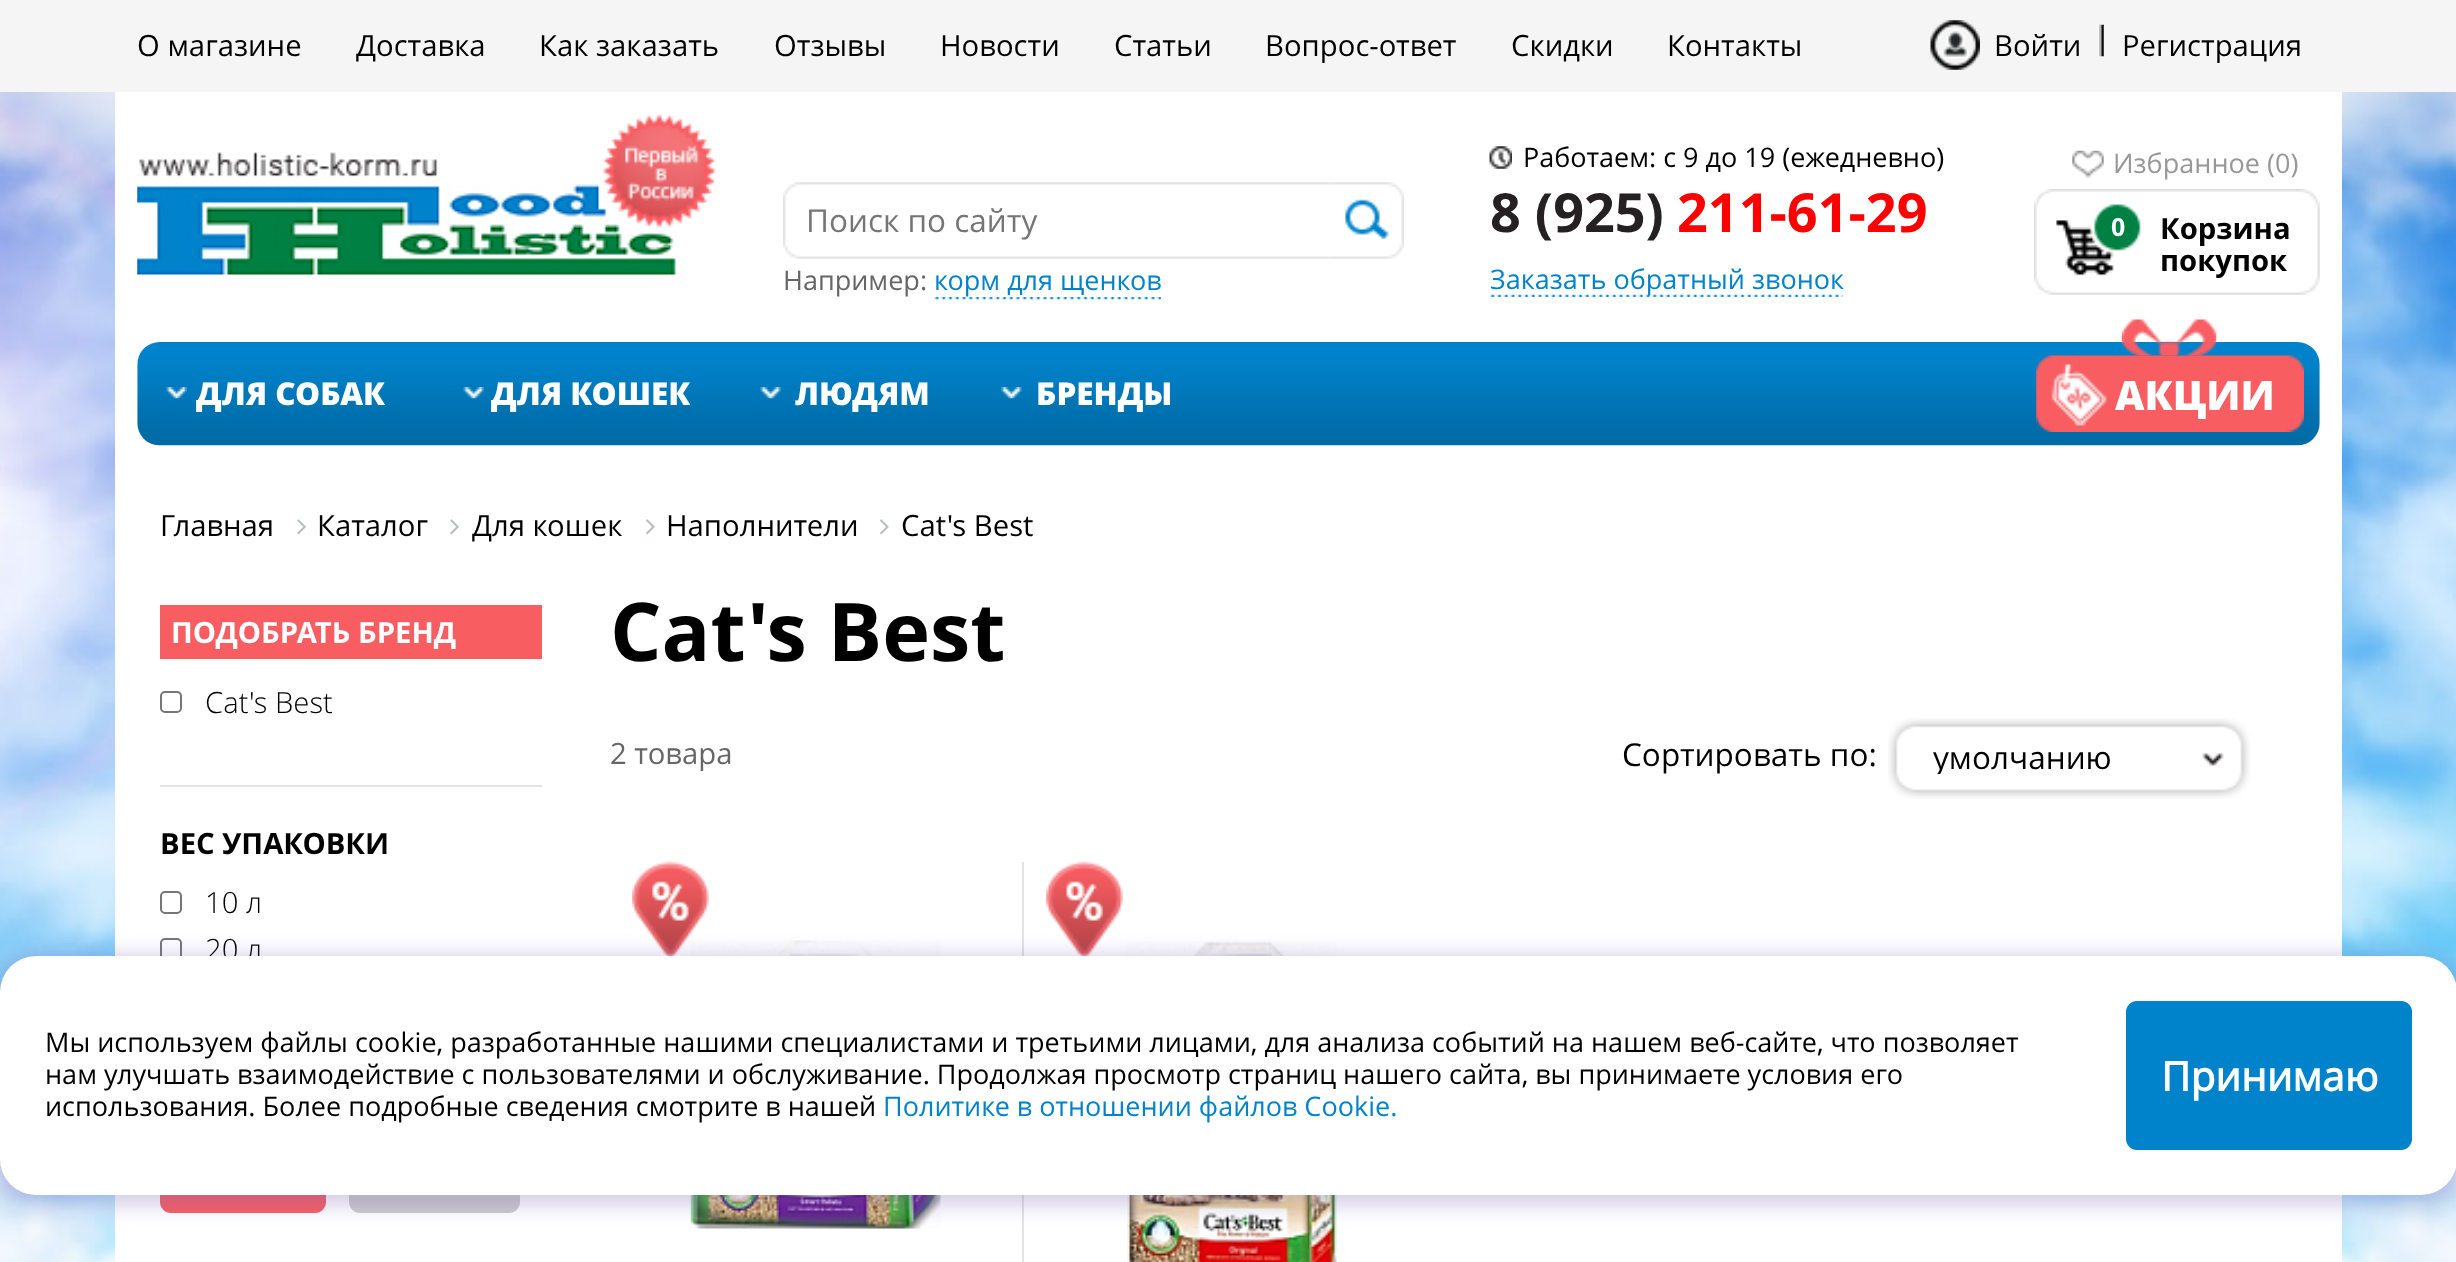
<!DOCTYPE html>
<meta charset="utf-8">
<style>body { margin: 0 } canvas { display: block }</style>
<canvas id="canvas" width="2456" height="1262"></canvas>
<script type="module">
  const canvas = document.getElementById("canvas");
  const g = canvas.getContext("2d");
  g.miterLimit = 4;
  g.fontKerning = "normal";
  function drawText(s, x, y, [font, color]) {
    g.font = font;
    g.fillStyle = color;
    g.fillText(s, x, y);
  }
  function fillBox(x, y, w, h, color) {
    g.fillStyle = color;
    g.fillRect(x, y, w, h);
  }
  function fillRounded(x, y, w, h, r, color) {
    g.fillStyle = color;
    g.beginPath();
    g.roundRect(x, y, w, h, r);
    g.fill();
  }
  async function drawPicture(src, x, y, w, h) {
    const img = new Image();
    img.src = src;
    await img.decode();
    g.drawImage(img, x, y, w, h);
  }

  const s1 = ["29.25px Open Sans", "#000000"];
  const s2 = ["31.5px Open Sans", "#757575"];
  const s3 = ["27px Open Sans", "#666666"];
  const s4 = ["27px Open Sans", "#0083CB"];
  const s5 = ["27px Open Sans", "#000000"];
  const s6 = ["bold 54px Open Sans", "#252122"];
  const s7 = ["bold 54px Open Sans", "#FF0000"];
  const s8 = ["27px Open Sans", "#999797"];
  const s9 = ["bold 25px Open Sans", "#FFFFFF"];
  const s10 = ["bold 29.25px Open Sans", "#000000"];
  const s11 = ["800 31.5px Open Sans", "#FFFFFF"];
  const s12 = ["800 40.5px Open Sans", "#FFFFFF"];
  const s13 = ["29.25px 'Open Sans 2'", "#000000"];
  const s14 = ["bold 29.25px Open Sans", "#FFFFFF"];
  const s15 = ["300 29.25px Open Sans", "#000000"];
  const s16 = ["bold 81px Open Sans", "#000000"];
  const s17 = ["29.25px Open Sans", "#666666"];
  const s18 = ["31.5px Open Sans", "#000000"];
  const s19 = ["bold 40.5px 'Open Sans 2'", "#FFFFFF"];

  fillBox(0, 0, 2456, 1262, "#FFFFFF");
  await drawPicture("pic1.png", 0, 92, 2456, 1170);
  fillBox(0, 0, 2456, 92, "#F5F5F5");
  drawText("О магазине", 137, 56, s1);
  drawText("Доставка", 356, 56, s1);
  drawText("Как заказать", 539, 56, s1);
  drawText("Отзывы", 774, 56, s1);
  drawText("Новости", 940, 56, s1);
  drawText("Статьи", 1114, 56, s1);
  drawText("Вопрос-ответ", 1265, 56, s1);
  drawText("Скидки", 1511, 56, s1);
  drawText("Контакты", 1667, 56, s1);
  await drawPicture("pic2.png", 1930, 20, 50, 50);
  drawText("Войти", 1994, 56, s1);
  await drawPicture("pic3.png", 2099, 24, 5, 33);
  drawText("Регистрация", 2122, 56, s1);
  fillBox(115, 92, 2227, 1170, "#FFFFFF");
  await drawPicture("pic4.png", 137, 114, 579, 161);
  await drawPicture("pic5.png", 783, 182, 547, 77);
  drawText("Поиск по сайту", 806, 232, s2);
  await drawPicture("pic6.png", 1330, 182, 74, 77);
  drawText("Например:", 783, 290, s3);
  drawText("корм для щенков", 934, 290, s4);
  await drawPicture("pic7.png", 934, 297, 227, 3);
  await drawPicture("pic8.png", 1489, 146, 23, 23);
  drawText("Работаем: с 9 до 19 (ежедневно)", 1523, 167, s5);
  drawText("8 (925)", 1490, 232, s6);
  drawText("211-61-29", 1677, 232, s7);
  await drawPicture("pic9.png", 1489, 294, 354, 3);
  drawText("Заказать обратный звонок", 1490, 289, s4);
  await drawPicture("pic10.png", 2072, 150, 32, 28);
  drawText("Избранное (0)", 2113, 173, s8);
  await drawPicture("pic11.png", 2034, 189, 286, 106);
  drawText("0", 2111, 236, s9);
  drawText("Корзина", 2160, 239, s10);
  drawText("покупок", 2160, 271, s10);
  await drawPicture("pic12.png", 137, 342, 2183, 104);
  await drawPicture("pic13.png", 166, 387, 21, 12);
  drawText("ДЛЯ СОБАК", 196, 405, s11);
  await drawPicture("pic14.png", 463, 387, 21, 12);
  drawText("ДЛЯ КОШЕК", 491, 405, s11);
  await drawPicture("pic15.png", 760, 387, 21, 12);
  drawText("ЛЮДЯМ", 795, 405, s11);
  await drawPicture("pic16.png", 1001, 387, 21, 12);
  drawText("БРЕНДЫ", 1036, 405, s11);
  await drawPicture("pic17.png", 2036, 355, 268, 77);
  await drawPicture("pic18.png", 2121, 319, 96, 37);
  drawText("АКЦИИ", 2115, 410, s12);
  drawText("Главная", 160, 536, s13);
  await drawPicture("pic19.png", 297, 519, 9, 16);
  drawText("Каталог", 317, 536, s13);
  await drawPicture("pic19.png", 450, 519, 9, 16);
  drawText("Для кошек", 472, 536, s13);
  await drawPicture("pic20.png", 646, 519, 9, 16);
  drawText("Наполнители", 666, 536, s13);
  await drawPicture("pic20.png", 880, 519, 9, 16);
  drawText("Cat's Best", 901, 536, s13);
  fillBox(160, 785, 382, 2, "#E3E3E3");
  fillBox(160, 605, 382, 54, "#F85D62");
  drawText("ПОДОБРАТЬ БРЕНД", 171, 643, s14);
  g.beginPath();
  g.roundRect(161, 692, 20, 20, 4);
  g.strokeStyle = "#767676";
  g.lineWidth = 2;
  g.stroke();
  drawText("Cat's Best", 205, 713, s15);
  drawText("ВЕС УПАКОВКИ", 160, 854, s10);
  g.beginPath();
  g.roundRect(161, 892, 20, 21, 4);
  g.stroke();
  drawText("10 л", 205, 913, s15);
  g.beginPath();
  g.roundRect(161, 939, 20, 21, 4);
  g.stroke();
  drawText("20 л", 205, 960, s15);
  fillRounded(160, 1123, 166, 90, 11, "#F85D62");
  fillRounded(349, 1123, 171, 90, 11, "#CCCCCC");
  drawText("Cat's Best", 610, 661, s16);
  drawText("2 товара", 610, 764, s17);
  drawText("Сортировать по:", 1622, 766, s18);
  await drawPicture("pic21.png", 1888, 718, 362, 81);
  g.save();
  g.beginPath();
  g.rect(1933, 743, 214, 31);
  g.clip();
  drawText("умолчанию", 1933, 769, s18);
  g.restore();
  fillBox(1022, 862, 2, 400, "#E3E3E3");
  await drawPicture("pic23.png", 690, 940, 251, 289);
  await drawPicture("pic22.png", 632, 861, 77, 95);
  await drawPicture("pic24.png", 1046, 861, 77, 95);
  await drawPicture("pic25.png", 1127, 941, 210, 321);
  g.fillStyle = "rgba(115, 100, 178, 0.3)";
  g.filter = "blur(10px)";
  g.beginPath();
  g.roundRect(-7, 954, 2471, 252, 43);
  g.fill();
  g.filter = "none";
  fillRounded(0, 956, 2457, 239, 36, "#FFFFFF");
  drawText("Мы используем файлы cookie, разработанные нашими специалистами и третьими лицами, для анализа событий на нашем веб-сайте, что позволяет", 45, 1052, s5);
  drawText("нам улучшать взаимодействие с пользователями и обслуживание. Продолжая просмотр страниц нашего сайта, вы принимаете условия его", 45, 1084, s5);
  drawText("использования. Более подробные сведения смотрите в нашей", 45, 1116, s5);
  drawText("Политике в отношении файлов Cookie.", 883, 1116, s4);
  fillRounded(2126, 1001, 286, 149, 11, "#0083CB");
  drawText("Принимаю", 2161, 1091, s19);
</script>
